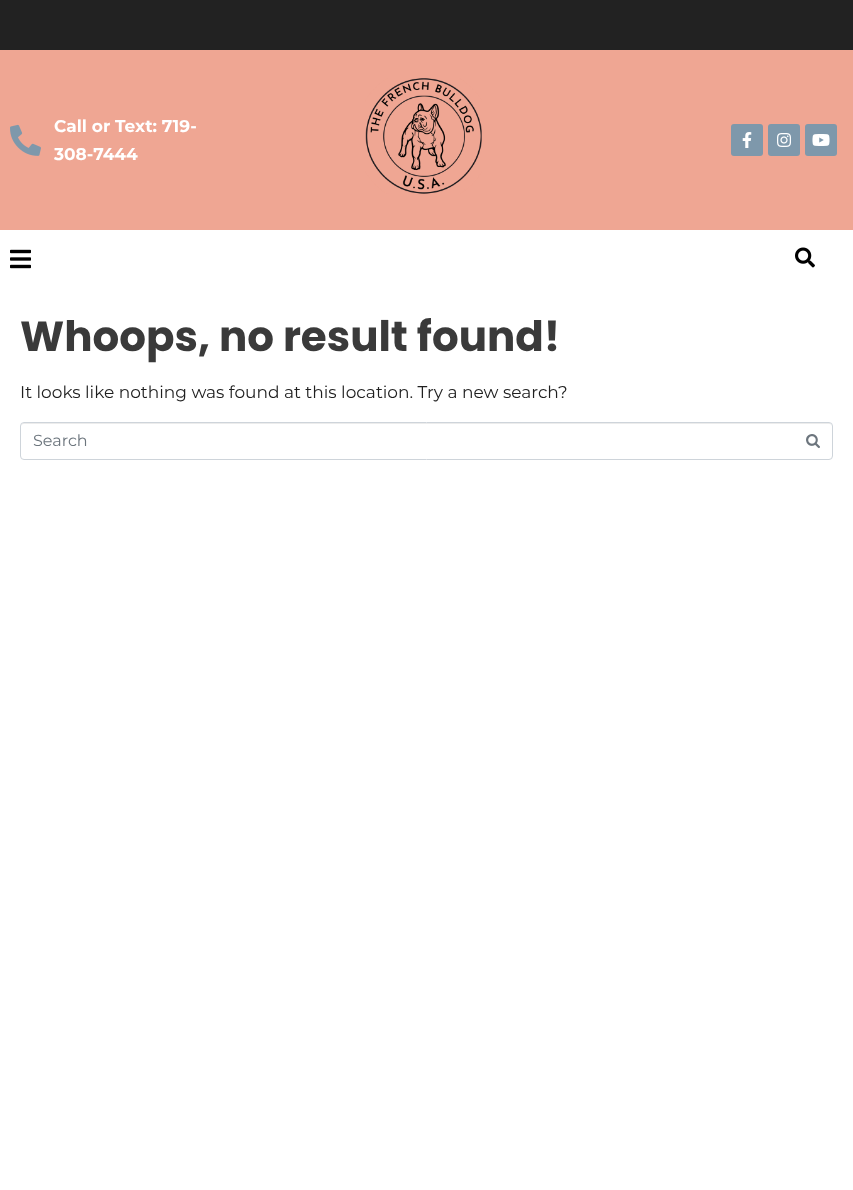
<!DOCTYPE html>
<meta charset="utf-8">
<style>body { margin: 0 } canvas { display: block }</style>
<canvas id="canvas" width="853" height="1190"></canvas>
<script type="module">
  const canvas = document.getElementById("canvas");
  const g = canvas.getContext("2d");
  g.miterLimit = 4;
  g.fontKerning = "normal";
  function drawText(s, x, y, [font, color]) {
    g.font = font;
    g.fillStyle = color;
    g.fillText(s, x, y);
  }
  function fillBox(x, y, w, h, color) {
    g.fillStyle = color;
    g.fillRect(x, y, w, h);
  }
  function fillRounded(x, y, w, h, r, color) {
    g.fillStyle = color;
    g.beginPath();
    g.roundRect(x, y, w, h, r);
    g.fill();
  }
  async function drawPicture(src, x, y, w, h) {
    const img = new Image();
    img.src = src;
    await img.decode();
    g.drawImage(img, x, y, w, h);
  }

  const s1 = ["bold 17px Montserrat", "#FFFFFF"];
  const s2 = ["bold 42px Poppins", "#3A3A3A"];
  const s3 = ["17px Montserrat", "#1F1F1F"];
  const s4 = ["16px Montserrat", "#6C757D"];

  fillBox(0, 0, 853, 1190, "#FFFFFF");
  fillBox(0, 0, 853, 50, "#222222");
  fillBox(0, 50, 853, 180, "#EFA693");
  await drawPicture("pic1.png", 10, 124, 31, 32);
  drawText("Call or Text: 719-", 54, 132, s1);
  drawText("308-7444", 54, 160, s1);
  await drawPicture("pic2.png", 365, 78, 117, 116);
  fillRounded(731, 124, 32, 32, 3, "#7E98AB");
  await drawPicture("pic3.png", 742, 132, 10, 16);
  fillRounded(768, 124, 32, 32, 3, "#7E98AB");
  await drawPicture("pic4.png", 777, 133, 14, 14);
  fillRounded(805, 124, 32, 32, 3, "#7E98AB");
  await drawPicture("pic5.png", 812, 134, 18, 12);
  await drawPicture("pic6.png", 10, 249, 21, 20);
  await drawPicture("pic7.png", 795, 247, 20, 21);
  drawText("Whoops, no result found!", 20, 351, s2);
  drawText("It looks like nothing was found at this location. Try a new search?", 20, 398, s3);
  g.fillStyle = "#ECECEC";
  g.beginPath();
  g.moveTo(24, 424);
  g.lineTo(829, 424);
  g.bezierCurveTo(831, 424, 832, 425, 832, 427);
  g.bezierCurveTo(832, 425, 831, 423, 829, 423);
  g.lineTo(24, 423);
  g.bezierCurveTo(22, 423, 21, 425, 21, 427);
  g.bezierCurveTo(21, 425, 22, 424, 24, 424);
  g.closePath();
  g.fill();
  g.beginPath();
  g.roundRect(20.5, 422.5, 812, 37, 3.5);
  g.strokeStyle = "#CED4DA";
  g.stroke();
  drawText("Search", 33, 446, s4);
  await drawPicture("pic8.png", 806, 434, 14, 15);
</script>
